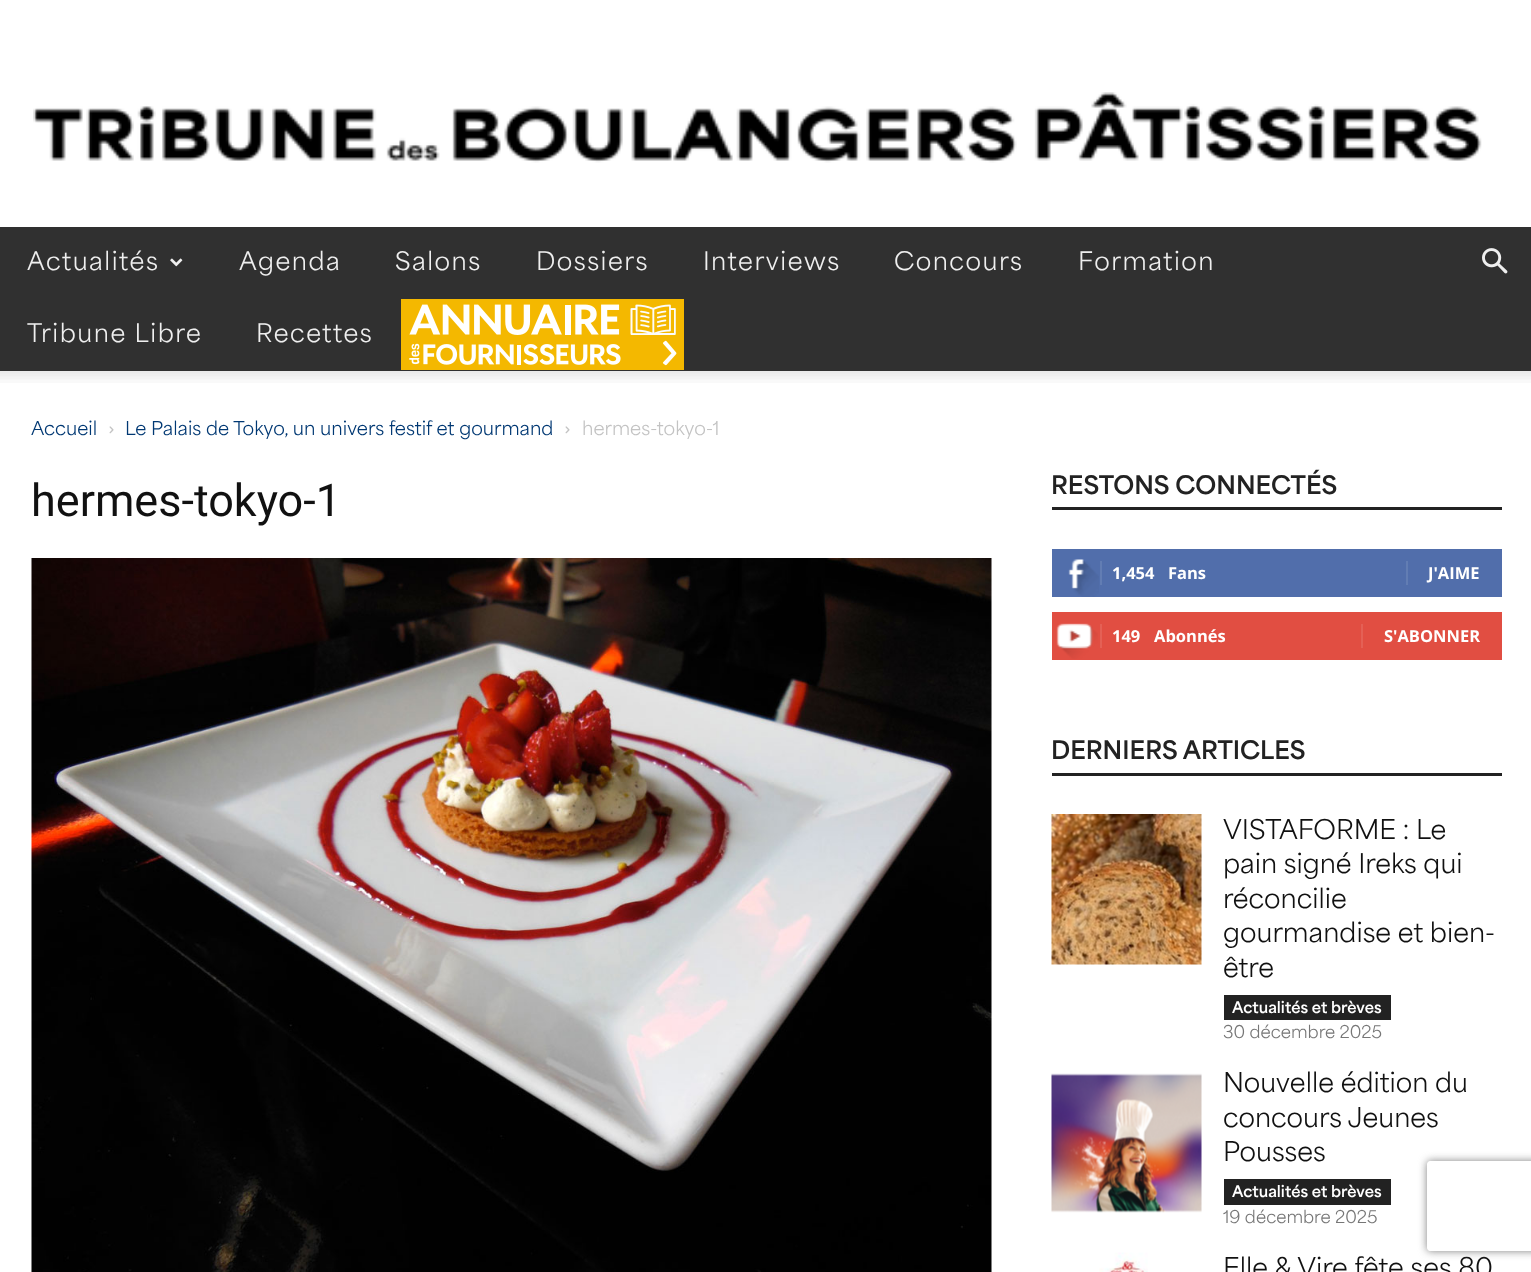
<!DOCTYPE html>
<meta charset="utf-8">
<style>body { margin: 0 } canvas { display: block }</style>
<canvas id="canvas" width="1531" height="1272"></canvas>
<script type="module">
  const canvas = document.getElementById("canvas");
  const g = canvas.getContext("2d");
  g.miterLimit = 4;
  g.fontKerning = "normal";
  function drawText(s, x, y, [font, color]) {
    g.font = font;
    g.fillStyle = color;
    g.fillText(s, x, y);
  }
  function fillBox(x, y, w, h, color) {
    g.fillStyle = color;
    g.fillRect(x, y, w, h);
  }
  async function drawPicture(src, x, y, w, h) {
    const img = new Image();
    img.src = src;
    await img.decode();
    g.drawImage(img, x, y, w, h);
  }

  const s1 = ["24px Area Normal", "#EFEFEF"];
  const s2 = ["18px Area Normal", "#003873"];
  const s3 = ["18px Area Normal", "#C3C3C3"];
  const s4 = ["45px Roboto", "#111111"];
  const s5 = ["bold 24px Area Normal", "#222222"];
  const s6 = ["bold 16.5px Open Sans", "#FFFFFF"];
  const s7 = ["25.5px Area Normal", "#111111"];
  const s8 = ["bold 15px Area Normal", "#FFFFFF"];
  const s9 = ["16.5px Area Normal", "#767676"];

  fillBox(0, 0, 1531, 1272, "#FFFFFF");
  await drawPicture("pic1.png", 33, 92, 1449, 71);
  fillBox(0, 227, 1531, 144, "#303030");
  g.letterSpacing = "1.5px";
  drawText("Actualités", 27, 270, s1);
  await drawPicture("pic2.png", 170, 258, 13, 9);
  drawText("Agenda", 239, 270, s1);
  drawText("Salons", 395, 270, s1);
  drawText("Dossiers", 536, 270, s1);
  drawText("Interviews", 703, 270, s1);
  drawText("Concours", 894, 270, s1);
  drawText("Formation", 1078, 270, s1);
  drawText("Tribune Libre", 27, 342, s1);
  drawText("Recettes", 256, 342, s1);
  await drawPicture("pic3.png", 401, 299, 283, 71);
  await drawPicture("pic4.png", 1482, 248, 26, 26);
  await drawPicture("pic5.png", 0, 371, 1531, 12);
  g.letterSpacing = "0px";
  drawText("Accueil", 31, 435, s2);
  await drawPicture("pic6.png", 109, 426, 5, 8);
  drawText("Le Palais de Tokyo, un univers festif et gourmand", 125, 435, s2);
  await drawPicture("pic6.png", 565, 426, 5, 8);
  drawText("hermes-tokyo-1", 582, 435, s3);
  drawText("hermes-tokyo-1", 31, 516, s4);
  await drawPicture("pic7.png", 31, 558, 961, 714);
  fillBox(1052, 507, 450, 3, "#222222");
  drawText("RESTONS CONNECTÉS", 1051, 494, s5);
  fillBox(1052, 549, 450, 48, "#516EAB");
  await drawPicture("pic8.png", 1068, 559, 31, 38);
  fillBox(1100, 561, 2, 24, "#627DB3");
  drawText("1,454", 1112, 579, s6);
  drawText("Fans", 1168, 579, s6);
  fillBox(1406, 561, 2, 24, "#627DB3");
  drawText("J'AIME", 1428, 579, s6);
  fillBox(1052, 612, 450, 48, "#E14E42");
  await drawPicture("pic9.png", 1056, 623, 42, 36);
  fillBox(1100, 624, 2, 24, "#E46055");
  drawText("149", 1112, 642, s6);
  drawText("Abonnés", 1154, 642, s6);
  fillBox(1361, 624, 2, 24, "#E46055");
  drawText("S'ABONNER", 1384, 642, s6);
  fillBox(1052, 773, 450, 3, "#222222");
  drawText("DERNIERS ARTICLES", 1051, 759, s5);
  await drawPicture("pic10.png", 1051, 814, 151, 151);
  drawText("VISTAFORME : Le", 1223, 839, s7);
  drawText("pain signé Ireks qui", 1223, 873, s7);
  drawText("réconcilie", 1223, 908, s7);
  drawText("gourmandise et bien-", 1223, 942, s7);
  drawText("être", 1223, 977, s7);
  fillBox(1224, 995, 167, 25, "#222222");
  drawText("Actualités et brèves", 1232, 1013, s8);
  drawText("30 décembre 2025", 1223, 1038, s9);
  await drawPicture("pic11.png", 1051, 1073, 151, 140);
  drawText("Nouvelle édition du", 1223, 1092, s7);
  drawText("concours Jeunes", 1223, 1127, s7);
  drawText("Pousses", 1223, 1161, s7);
  fillBox(1224, 1179, 167, 26, "#222222");
  drawText("Actualités et brèves", 1232, 1197, s8);
  drawText("19 décembre 2025", 1223, 1223, s9);
  await drawPicture("pic12.png", 1099, 1252, 49, 20);
  drawText("Elle & Vire fête ses 80", 1223, 1277, s7);
  g.save();
  g.beginPath();
  g.moveTo(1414, 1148);
  g.lineTo(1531, 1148);
  g.lineTo(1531, 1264);
  g.lineTo(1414, 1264);
  g.closePath();
  g.moveTo(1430, 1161);
  g.lineTo(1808, 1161);
  g.bezierCurveTo(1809.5, 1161, 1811, 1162.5, 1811, 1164);
  g.lineTo(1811, 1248);
  g.bezierCurveTo(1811, 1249.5, 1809.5, 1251, 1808, 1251);
  g.lineTo(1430, 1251);
  g.bezierCurveTo(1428.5, 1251, 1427, 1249.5, 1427, 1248);
  g.lineTo(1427, 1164);
  g.bezierCurveTo(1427, 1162.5, 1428.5, 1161, 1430, 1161);
  g.closePath();
  g.clip("evenodd");
  g.fillStyle = "#808080";
  g.filter = "blur(4px)";
  g.beginPath();
  g.roundRect(1427, 1161, 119, 90, 3);
  g.fill();
  g.filter = "none";
  g.restore();
</script>
